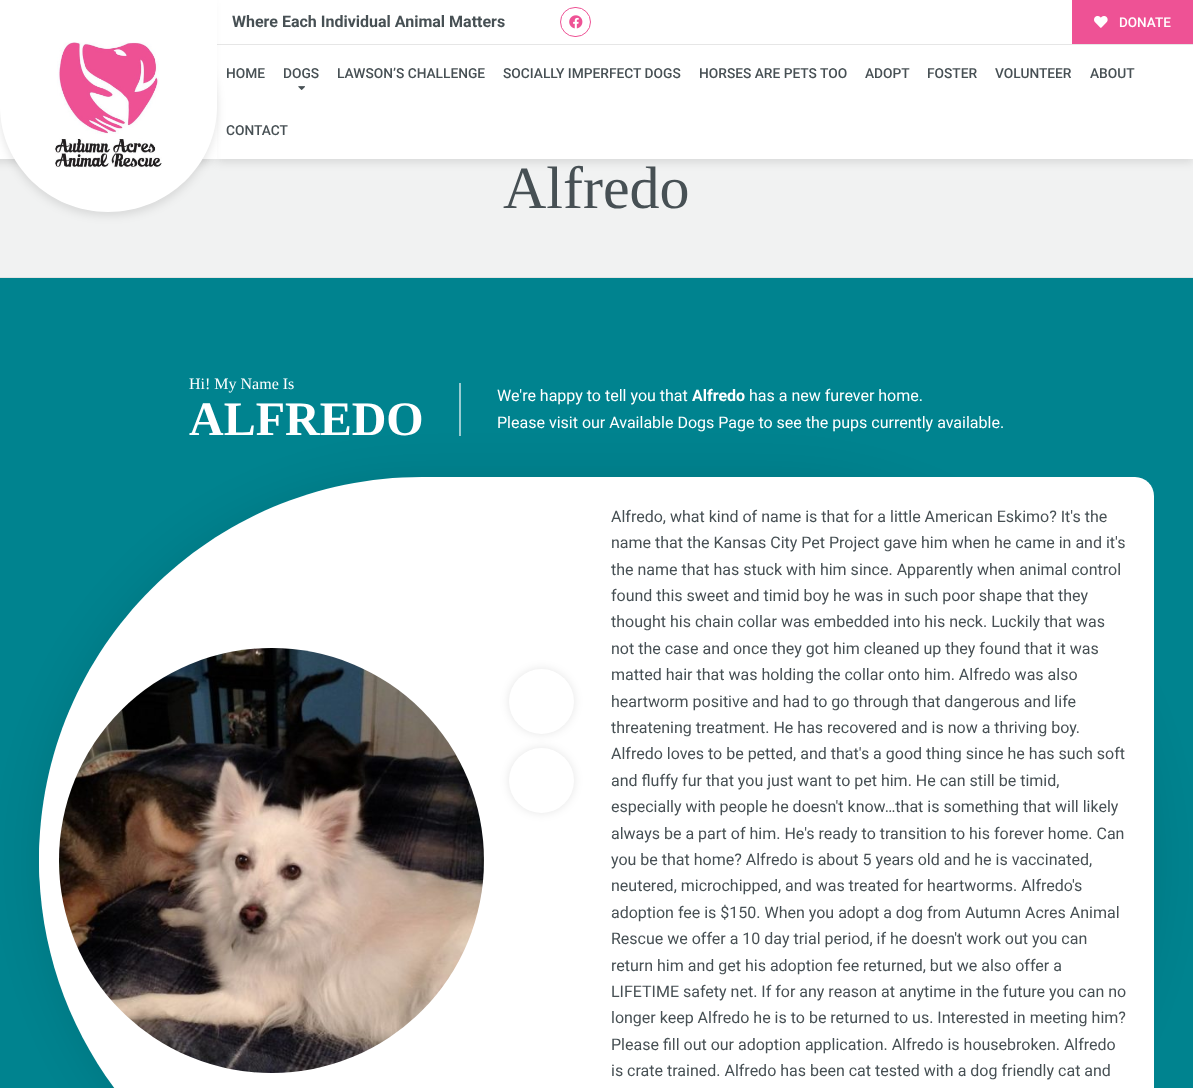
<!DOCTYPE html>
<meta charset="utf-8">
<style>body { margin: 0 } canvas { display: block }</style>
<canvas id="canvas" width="1193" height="1088"></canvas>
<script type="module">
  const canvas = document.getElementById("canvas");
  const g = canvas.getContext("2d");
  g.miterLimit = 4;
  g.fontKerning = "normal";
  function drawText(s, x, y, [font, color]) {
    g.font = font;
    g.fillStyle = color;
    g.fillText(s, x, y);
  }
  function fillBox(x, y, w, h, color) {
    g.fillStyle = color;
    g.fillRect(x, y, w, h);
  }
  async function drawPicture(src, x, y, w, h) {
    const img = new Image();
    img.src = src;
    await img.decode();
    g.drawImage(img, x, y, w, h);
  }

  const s1 = ["bold 16px Roboto", "#475054"];
  const s2 = ["500 13.5px Roboto", "#FFFFFF"];
  const s3 = ["500 13.75px Roboto", "#475054"];
  const s4 = ["60px Liberation Serif", "#475054"];
  const s5 = ["16px Liberation Serif", "#FFFFFF"];
  const s6 = ["bold 48px Liberation Serif", "#FFFFFF"];
  const s7 = ["16px Roboto", "#FFFFFF"];
  const s8 = ["bold 16px Roboto", "#FFFFFF"];
  const s9 = ["16px Roboto", "#475054"];

  fillBox(0, 0, 1193, 1088, "#F1F2F2");
  g.fillStyle = "rgba(0, 0, 0, 0.11)";
  g.filter = "blur(5px)";
  g.beginPath();
  g.rect(217, 3, 976, 159);
  g.fill();
  g.filter = "none";
  fillBox(217, 0, 976, 159, "#FFFFFF");
  fillBox(217, 44, 976, 1, "#E6E6E6");
  g.fillStyle = "rgba(0, 0, 0, 0.11)";
  g.filter = "blur(5px)";
  g.beginPath();
  g.rect(-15, 3, 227, 159);
  g.fill();
  g.filter = "none";
  fillBox(0, 106, 217, 53, "#FFFFFF");
  g.fillStyle = "rgba(0, 0, 0, 0.11)";
  g.filter = "blur(5px)";
  g.beginPath();
  g.roundRect(0, 3, 217, 212, 106);
  g.fill();
  g.filter = "none";
  g.fillStyle = "#FFFFFF";
  g.beginPath();
  g.moveTo(0, 0);
  g.lineTo(217, 0);
  g.lineTo(217, 106);
  g.bezierCurveTo(217, 165, 168, 212, 108, 212);
  g.bezierCurveTo(49, 212, 0, 165, 0, 106);
  g.closePath();
  g.fill();
  await drawPicture("pic1.png", 55, 42, 107, 126);
  drawText("Where Each Individual Animal Matters", 232, 27, s1);
  g.beginPath();
  g.roundRect(560.5, 7.5, 30, 29, 14.5);
  g.strokeStyle = "#EE5295";
  g.stroke();
  await drawPicture("pic2.png", 569, 15, 14, 14);
  fillBox(1072, 0, 121, 44, "#EE5295");
  await drawPicture("pic3.png", 1094, 16, 14, 12);
  drawText("DONATE", 1119, 27, s2);
  drawText("HOME", 226, 78, s3);
  drawText("DOGS", 283, 78, s3);
  await drawPicture("pic4.png", 298, 86, 7, 4);
  drawText("LAWSON’S CHALLENGE", 337, 78, s3);
  drawText("SOCIALLY IMPERFECT DOGS", 503, 78, s3);
  drawText("HORSES ARE PETS TOO", 699, 78, s3);
  drawText("ADOPT", 865, 78, s3);
  drawText("FOSTER", 927, 78, s3);
  drawText("VOLUNTEER", 995, 78, s3);
  drawText("ABOUT", 1090, 78, s3);
  drawText("CONTACT", 226, 135, s3);
  fillBox(0, 277, 1193, 1, "#E3E3E3");
  drawText("Alfredo", 503, 208, s4);
  fillBox(0, 278, 1193, 810, "#00838F");
  drawText("Hi! My Name Is", 189, 389, s5);
  drawText("ALFREDO", 189, 435, s6);
  fillBox(459, 383, 2, 53, "#99CDD2");
  drawText("We're happy to tell you that", 497, 401, s7);
  drawText("Alfredo", 692, 401, s8);
  drawText("has a new furever home.", 749, 401, s7);
  drawText("Please visit our Available Dogs Page to see the pups currently available.", 497, 428, s7);
  g.fillStyle = "rgba(0, 0, 0, 0.1)";
  g.filter = "blur(24px)";
  g.beginPath();
  g.roundRect(39, 479, 1115, 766, 383);
  g.fill();
  g.filter = "none";
  g.fillStyle = "#FFFFFF";
  g.beginPath();
  g.moveTo(422, 477);
  g.lineTo(1135, 477);
  g.bezierCurveTo(1145.5, 477, 1154, 485.5, 1154, 496);
  g.lineTo(1154, 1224);
  g.bezierCurveTo(1154, 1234.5, 1145.5, 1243, 1135, 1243);
  g.lineTo(422, 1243);
  g.bezierCurveTo(210.5, 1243, 39, 1071.5, 39, 860);
  g.bezierCurveTo(39, 648.5, 210.5, 477, 422, 477);
  g.closePath();
  g.fill();
  g.beginPath();
  g.arc(271.5, 860.5, 232.5, 0, Math.PI * 2);
  g.fill();
  await drawPicture("pic5.png", 59, 648, 425, 425);
  g.fillStyle = "rgba(0, 0, 0, 0.1)";
  g.filter = "blur(5px)";
  g.beginPath();
  g.roundRect(509, 669, 65, 65, 32.5);
  g.fill();
  g.filter = "none";
  g.fillStyle = "#FFFFFF";
  g.beginPath();
  g.arc(541.5, 701.5, 32.5, 0, Math.PI * 2);
  g.fill();
  g.fillStyle = "rgba(0, 0, 0, 0.1)";
  g.filter = "blur(5px)";
  g.beginPath();
  g.roundRect(509, 748, 65, 65, 32.5);
  g.fill();
  g.filter = "none";
  g.fillStyle = "#FFFFFF";
  g.beginPath();
  g.arc(541.5, 780.5, 32.5, 0, Math.PI * 2);
  g.fill();
  drawText("Alfredo, what kind of name is that for a little American Eskimo? It's the", 611, 522, s9);
  drawText("name that the Kansas City Pet Project gave him when he came in and it's", 611, 548, s9);
  drawText("the name that has stuck with him since. Apparently when animal control", 611, 575, s9);
  drawText("found this sweet and timid boy he was in such poor shape that they", 611, 601, s9);
  drawText("thought his chain collar was embedded into his neck. Luckily that was", 611, 627, s9);
  drawText("not the case and once they got him cleaned up they found that it was", 611, 654, s9);
  drawText("matted hair that was holding the collar onto him. Alfredo was also", 611, 680, s9);
  drawText("heartworm positive and had to go through that dangerous and life", 611, 707, s9);
  drawText("threatening treatment. He has recovered and is now a thriving boy.", 611, 733, s9);
  drawText("Alfredo loves to be petted, and that's a good thing since he has such soft", 611, 759, s9);
  drawText("and fluffy fur that you just want to pet him. He can still be timid,", 611, 786, s9);
  drawText("especially with people he doesn't know…that is something that will likely", 611, 812, s9);
  drawText("always be a part of him. He's ready to transition to his forever home. Can", 611, 839, s9);
  drawText("you be that home? Alfredo is about 5 years old and he is vaccinated,", 611, 865, s9);
  drawText("neutered, microchipped, and was treated for heartworms. Alfredo's", 611, 891, s9);
  drawText("adoption fee is $150. When you adopt a dog from Autumn Acres Animal", 611, 918, s9);
  drawText("Rescue we offer a 10 day trial period, if he doesn't work out you can", 611, 944, s9);
  drawText("return him and get his adoption fee returned, but we also offer a", 611, 971, s9);
  drawText("LIFETIME safety net. If for any reason at anytime in the future you can no", 611, 997, s9);
  drawText("longer keep Alfredo he is to be returned to us. Interested in meeting him?", 611, 1023, s9);
  drawText("Please fill out our adoption application. Alfredo is housebroken. Alfredo", 611, 1050, s9);
  drawText("is crate trained. Alfredo has been cat tested with a dog friendly cat and", 611, 1076, s9);
</script>
